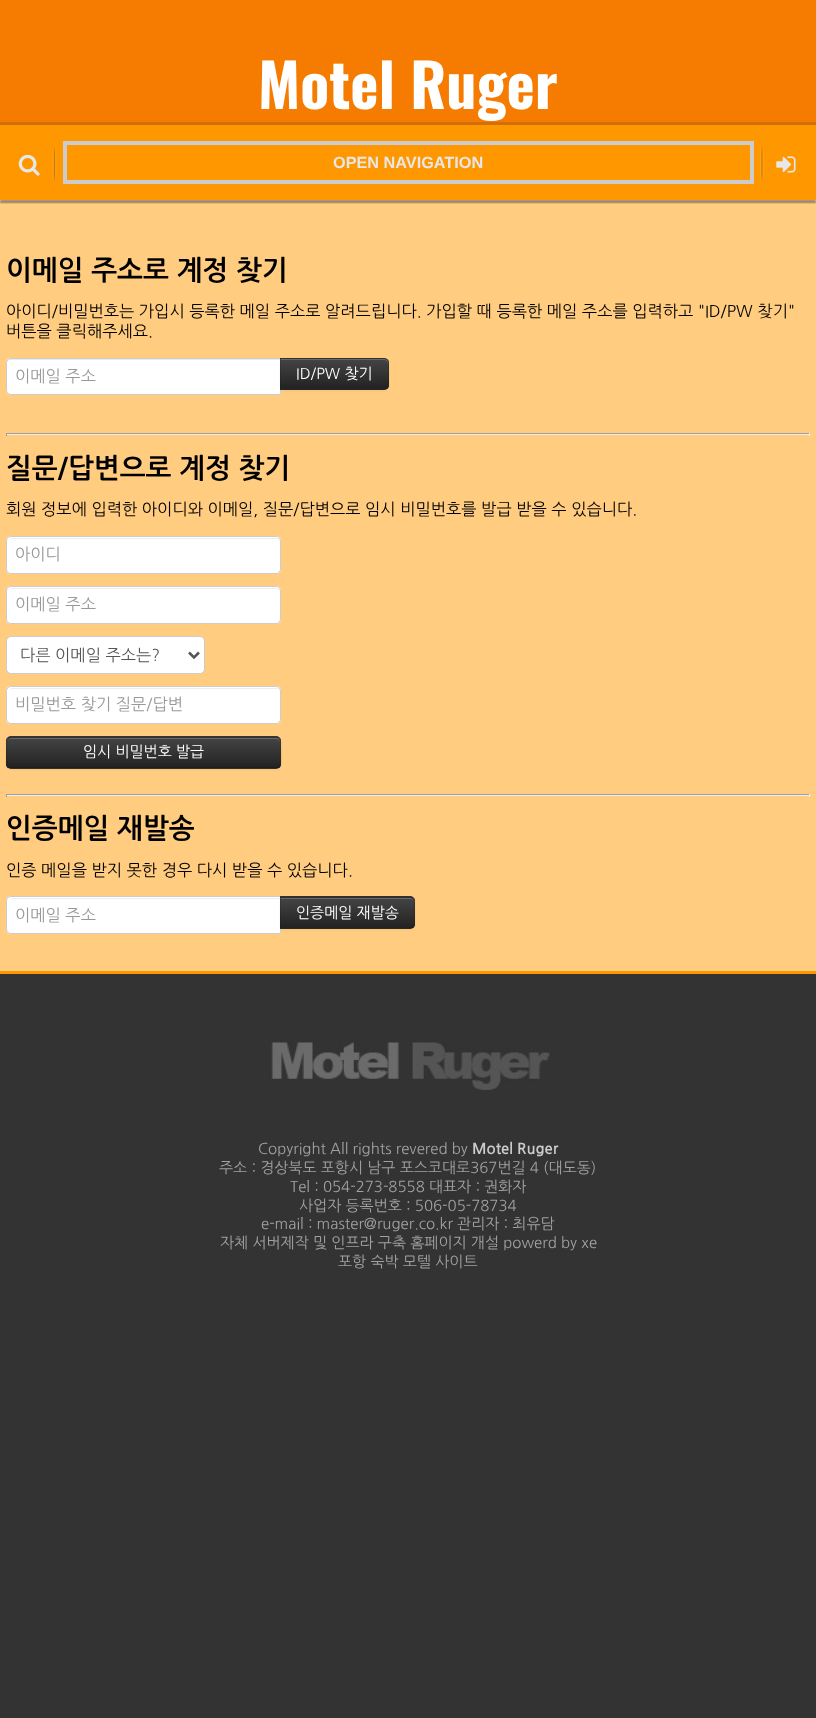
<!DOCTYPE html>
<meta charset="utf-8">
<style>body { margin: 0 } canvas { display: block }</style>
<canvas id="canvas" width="816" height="1718"></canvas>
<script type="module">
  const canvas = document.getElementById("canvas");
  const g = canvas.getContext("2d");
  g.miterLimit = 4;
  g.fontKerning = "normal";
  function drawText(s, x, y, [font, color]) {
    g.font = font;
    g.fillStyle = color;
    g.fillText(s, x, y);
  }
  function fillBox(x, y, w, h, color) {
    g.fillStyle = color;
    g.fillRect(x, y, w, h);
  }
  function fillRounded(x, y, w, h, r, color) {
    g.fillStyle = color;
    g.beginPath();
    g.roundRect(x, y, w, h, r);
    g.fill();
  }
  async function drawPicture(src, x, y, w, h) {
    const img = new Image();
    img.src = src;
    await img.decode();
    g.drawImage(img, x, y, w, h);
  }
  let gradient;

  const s1 = ["bold 60px Oswald", "#FFFFFF"];
  const s2 = ["bold 16.25px Liberation Sans", "#E7E7E7"];
  const s3 = ["bold 27.5px NanumGothic", "#000000"];
  const s4 = ["16.25px NanumGothic", "#000000"];
  const s5 = ["16.25px NanumGothic", "#999999"];
  const s6 = ["15px NanumGothic", "#FFFFFF"];
  const s7 = ["16.25px NanumGothic", "#555555"];
  const s8 = ["15px NanumGothic", "#A2A2A2"];
  const s9 = ["bold 15px NanumGothic", "#CCCCCC"];

  fillBox(0, 0, 816, 1718, "#333333");
  fillBox(0, 203, 816, 768, "#FFCC80");
  fillBox(0, 200, 816, 3, "#E3B672");
  fillBox(0, 125, 816, 75, "#FF9800");
  fillBox(0, 0, 816, 122, "#F57C00");
  fillBox(0, 122, 816, 3, "#D36F08");
  drawText("Motel Ruger", 258, 109, s1);
  await drawPicture("pic5.png", 0, 200, 816, 2);
  g.save();
  g.beginPath();
  g.rect(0, 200, 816, 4);
  g.clip();
  g.fillStyle = "rgba(0, 0, 0, 0.3)";
  g.filter = "blur(1px)";
  g.beginPath();
  g.rect(0, 128, 816, 75);
  g.fill();
  g.filter = "none";
  g.restore();
  await drawPicture("pic1.png", 52, 146, 5, 35);
  await drawPicture("pic2.png", 18, 154, 22, 22);
  g.strokeStyle = "#CCCCCC";
  g.lineWidth = 4;
  g.strokeRect(65, 143, 687, 39);
  drawText("OPEN NAVIGATION", 333, 168, s2);
  await drawPicture("pic3.png", 760, 146, 4, 35);
  await drawPicture("pic4.png", 776, 156, 20, 17);
  drawText("이메일 주소로 계정 찾기", 6, 280, s3);
  drawText("아이디/비밀번호는 가입시 등록한 메일 주소로 알려드립니다. 가입할 때 등록한 메일 주소를 입력하고 \"ID/PW 찾기\"", 6, 317, s4);
  drawText("버튼을 클릭해주세요.", 6, 337, s4);
  g.fillStyle = "#FFFFFF";
  g.beginPath();
  g.roundRect(6, 358, 275, 37, [5, 0, 0, 5]);
  g.fill();
  g.fillStyle = "#ECECEC";
  g.beginPath();
  g.moveTo(11, 360);
  g.lineTo(280, 360);
  g.lineTo(280, 359);
  g.lineTo(12, 359);
  g.bezierCurveTo(9, 359, 8, 361, 8, 364);
  g.bezierCurveTo(8, 362, 9, 360, 11, 360);
  g.closePath();
  g.fill();
  g.beginPath();
  g.roundRect(6.5, 358.5, 274, 36, [4.5, 0, 0, 4.5]);
  g.lineWidth = 1;
  g.stroke();
  drawText("이메일 주소", 15, 382, s5);
  g.fillStyle = "rgba(0, 0, 0, 0.05)";
  g.filter = "blur(1px)";
  g.beginPath();
  g.roundRect(280, 359, 109, 32, 5);
  g.fill();
  g.filter = "none";
  g.fillStyle = "#363636";
  g.beginPath();
  g.roundRect(280, 358, 109, 32, [0, 5, 5, 0]);
  g.fill();
  g.save();
  g.beginPath();
  g.roundRect(280, 358, 109, 32, [0, 5, 5, 0]);
  g.clip();
  gradient = g.createLinearGradient(334, 359, 334, 389);
  gradient.addColorStop(0, "#444444");
  gradient.addColorStop(1, "#222222");
  g.fillStyle = gradient;
  g.fillRect(280, 359, 109, 30);
  g.restore();
  g.fillStyle = "#696969";
  g.beginPath();
  g.moveTo(281, 360);
  g.lineTo(384, 360);
  g.bezierCurveTo(386, 360, 388, 362, 388, 364);
  g.lineTo(388, 363);
  g.bezierCurveTo(388, 361, 386, 359, 384, 359);
  g.lineTo(281, 359);
  g.closePath();
  g.fill();
  g.fillStyle = "rgba(0, 0, 0, 0.1)";
  g.beginPath();
  g.moveTo(387, 359);
  g.bezierCurveTo(386, 358, 385, 358, 384, 358);
  g.lineTo(280, 358);
  g.lineTo(282, 359);
  g.lineTo(384, 359);
  g.lineTo(387, 360);
  g.closePath();
  g.fill();
  g.beginPath();
  g.moveTo(387.5, 359);
  g.lineTo(389, 361);
  g.lineTo(389, 386.5);
  g.lineTo(387.5, 388.5);
  g.lineTo(386.5, 388);
  g.bezierCurveTo(387.5, 387, 388, 386, 388, 385);
  g.lineTo(388, 362);
  g.bezierCurveTo(388, 361, 387.5, 360, 386.5, 359.5);
  g.closePath();
  g.fill();
  g.fillStyle = "rgba(0, 0, 0, 0.25)";
  g.beginPath();
  g.moveTo(384, 390);
  g.bezierCurveTo(385, 390, 387, 390, 387, 389);
  g.lineTo(387, 388);
  g.lineTo(384, 389);
  g.lineTo(281, 389);
  g.lineTo(280, 390);
  g.closePath();
  g.fill();
  g.fillStyle = "rgba(0, 0, 0, 0.1)";
  g.beginPath();
  g.moveTo(281, 359);
  g.lineTo(281.5, 359);
  g.lineTo(280.5, 358);
  g.lineTo(280, 358);
  g.lineTo(280, 390);
  g.lineTo(281, 389);
  g.closePath();
  g.fill();
  drawText("ID/PW 찾기", 296, 379, s6);
  fillBox(6, 433, 804, 1, "#9F9F9F");
  fillBox(809, 433, 1, 3, "#EEEEEE");
  fillBox(6, 434, 804, 1, "#EEEEEE");
  fillBox(6, 433, 1, 3, "#9F9F9F");
  drawText("질문/답변으로 계정 찾기", 6, 478, s3);
  drawText("회원 정보에 입력한 아이디와 이메일, 질문/답변으로 임시 비밀번호를 발급 받을 수 있습니다.", 6, 515, s4);
  fillRounded(6, 536, 275, 38, 5, "#FFFFFF");
  g.fillStyle = "#ECECEC";
  g.beginPath();
  g.moveTo(11, 539);
  g.lineTo(277, 539);
  g.lineTo(280, 541);
  g.lineTo(280, 542);
  g.bezierCurveTo(280, 540, 278, 538, 276, 538);
  g.lineTo(12, 538);
  g.bezierCurveTo(11, 538, 9, 539, 9, 540);
  g.closePath();
  g.fill();
  g.beginPath();
  g.roundRect(6.5, 536.5, 274, 37, 4.5);
  g.stroke();
  drawText("아이디", 15, 560, s5);
  fillRounded(6, 586, 275, 38, 5, "#FFFFFF");
  g.fillStyle = "#ECECEC";
  g.beginPath();
  g.moveTo(11, 589);
  g.lineTo(277, 589);
  g.lineTo(280, 591);
  g.lineTo(280, 592);
  g.bezierCurveTo(280, 590, 278, 588, 276, 588);
  g.lineTo(12, 588);
  g.bezierCurveTo(11, 588, 9, 589, 9, 590);
  g.closePath();
  g.fill();
  g.beginPath();
  g.roundRect(6.5, 586.5, 274, 37, 4.5);
  g.stroke();
  drawText("이메일 주소", 15, 610, s5);
  g.fillStyle = "#FFFFFF";
  g.beginPath();
  g.roundRect(6.5, 636.5, 198, 37, 4.5);
  g.fill();
  g.stroke();
  g.beginPath();
  g.moveTo(189, 652.5);
  g.lineTo(194, 657.5);
  g.lineTo(199, 652.5);
  g.strokeStyle = "#555555";
  g.lineWidth = 2.5;
  g.stroke();
  drawText("다른 이메일 주소는?", 20, 661, s7);
  fillRounded(6, 686, 275, 38, 5, "#FFFFFF");
  g.fillStyle = "#ECECEC";
  g.beginPath();
  g.moveTo(11, 689);
  g.lineTo(277, 689);
  g.lineTo(280, 691);
  g.lineTo(280, 692);
  g.bezierCurveTo(280, 690, 278, 688, 276, 688);
  g.lineTo(12, 688);
  g.bezierCurveTo(11, 688, 9, 689, 9, 690);
  g.closePath();
  g.fill();
  g.beginPath();
  g.roundRect(6.5, 686.5, 274, 37, 4.5);
  g.strokeStyle = "#CCCCCC";
  g.lineWidth = 1;
  g.stroke();
  drawText("비밀번호 찾기 질문/답변", 15, 710, s5);
  g.fillStyle = "rgba(0, 0, 0, 0.05)";
  g.filter = "blur(1px)";
  g.beginPath();
  g.roundRect(6, 738, 275, 32, 5);
  g.fill();
  g.filter = "none";
  fillRounded(6, 736, 275, 33, 5, "#363636");
  g.save();
  g.beginPath();
  g.roundRect(6, 736, 275, 33, 5);
  g.clip();
  gradient = g.createLinearGradient(144, 738, 144, 768);
  gradient.addColorStop(0, "#444444");
  gradient.addColorStop(1, "#222222");
  g.fillStyle = gradient;
  g.fillRect(6, 738, 275, 30);
  g.restore();
  g.fillStyle = "#696969";
  g.beginPath();
  g.moveTo(11, 739);
  g.lineTo(277, 739);
  g.lineTo(280, 741);
  g.lineTo(280, 742);
  g.bezierCurveTo(280, 740, 278, 738, 276, 738);
  g.lineTo(12, 738);
  g.bezierCurveTo(11, 738, 9, 739, 9, 740);
  g.closePath();
  g.fill();
  g.beginPath();
  g.moveTo(279.5, 767);
  g.bezierCurveTo(278.5, 767.5, 277.5, 768, 276, 768);
  g.lineTo(11.5, 768);
  g.bezierCurveTo(10, 768, 9, 767.5, 8, 767);
  g.strokeStyle = "rgba(0, 0, 0, 0.25)";
  g.lineWidth = 1.2;
  g.stroke();
  g.beginPath();
  g.moveTo(8, 767);
  g.bezierCurveTo(5.5, 764, 7, 749, 7, 745);
  g.bezierCurveTo(7, 741.5, 6.5, 737, 11, 737);
  g.lineTo(276, 737);
  g.bezierCurveTo(281, 737, 280.5, 741.5, 280.5, 745);
  g.bezierCurveTo(280.5, 749, 282, 764, 279.5, 767);
  g.strokeStyle = "rgba(0, 0, 0, 0.1)";
  g.stroke();
  drawText("임시 비밀번호 발급", 83, 757, s6);
  fillBox(6, 794, 804, 1, "#9F9F9F");
  fillBox(809, 794, 1, 3, "#EEEEEE");
  fillBox(6, 795, 804, 1, "#EEEEEE");
  fillBox(6, 794, 1, 3, "#9F9F9F");
  drawText("인증메일 재발송", 6, 838, s3);
  drawText("인증 메일을 받지 못한 경우 다시 받을 수 있습니다.", 6, 876, s4);
  g.fillStyle = "#FFFFFF";
  g.beginPath();
  g.roundRect(6, 896, 275, 38, [5, 0, 0, 5]);
  g.fill();
  g.fillStyle = "#ECECEC";
  g.beginPath();
  g.moveTo(11, 899);
  g.lineTo(280, 899);
  g.lineTo(280, 898);
  g.lineTo(12, 898);
  g.lineTo(10, 899);
  g.lineTo(9, 900);
  g.closePath();
  g.fill();
  g.beginPath();
  g.roundRect(6.5, 896.5, 274, 37, [4.5, 0, 0, 4.5]);
  g.strokeStyle = "#CCCCCC";
  g.lineWidth = 1;
  g.stroke();
  drawText("이메일 주소", 15, 921, s5);
  g.fillStyle = "rgba(0, 0, 0, 0.05)";
  g.filter = "blur(1px)";
  g.beginPath();
  g.roundRect(280, 898, 135, 32, 5);
  g.fill();
  g.filter = "none";
  g.fillStyle = "#363636";
  g.beginPath();
  g.roundRect(280, 896, 135, 33, [0, 5, 5, 0]);
  g.fill();
  g.save();
  g.beginPath();
  g.roundRect(280, 896, 135, 33, [0, 5, 5, 0]);
  g.clip();
  gradient = g.createLinearGradient(348, 898, 348, 928);
  gradient.addColorStop(0, "#444444");
  gradient.addColorStop(1, "#222222");
  g.fillStyle = gradient;
  g.fillRect(280, 898, 135, 30);
  g.restore();
  g.fillStyle = "#696969";
  g.beginPath();
  g.moveTo(281, 899);
  g.lineTo(410, 899);
  g.bezierCurveTo(412, 899, 414, 900, 414, 902);
  g.bezierCurveTo(414, 900, 412, 898, 410, 898);
  g.lineTo(281, 898);
  g.closePath();
  g.fill();
  g.fillStyle = "rgba(0, 0, 0, 0.1)";
  g.beginPath();
  g.moveTo(280, 896);
  g.lineTo(412, 896);
  g.lineTo(414, 898);
  g.lineTo(413, 899);
  g.lineTo(410, 898);
  g.lineTo(282, 898);
  g.closePath();
  g.fill();
  g.beginPath();
  g.moveTo(415, 924);
  g.lineTo(415, 901);
  g.bezierCurveTo(415, 899.5, 414.5, 898.5, 413.5, 897.5);
  g.lineTo(412.5, 898.5);
  g.bezierCurveTo(413.5, 899, 414, 900, 414, 901);
  g.lineTo(414, 924);
  g.bezierCurveTo(414, 925, 413.5, 926, 413, 926.5);
  g.lineTo(413.5, 927.5);
  g.bezierCurveTo(414.5, 926.5, 415, 925.5, 415, 924);
  g.closePath();
  g.fill();
  g.fillStyle = "rgba(0, 0, 0, 0.25)";
  g.beginPath();
  g.moveTo(412, 929);
  g.lineTo(280, 929);
  g.lineTo(281, 928);
  g.lineTo(410, 928);
  g.lineTo(413, 927);
  g.lineTo(414, 927);
  g.closePath();
  g.fill();
  g.fillStyle = "rgba(0, 0, 0, 0.1)";
  g.beginPath();
  g.moveTo(281, 898);
  g.lineTo(282, 898);
  g.lineTo(280, 896);
  g.lineTo(280, 929);
  g.lineTo(281, 928);
  g.closePath();
  g.fill();
  drawText("인증메일 재발송", 296, 918, s6);
  fillBox(0, 971, 816, 3, "#FF9800");
  await drawPicture("pic6.png", 271, 1042, 279, 48);
  drawText("Copyright All rights revered by", 258, 1154, s8);
  drawText("Motel Ruger", 472, 1154, s9);
  drawText("주소 : 경상북도 포항시 남구 포스코대로367번길 4 (대도동)", 219, 1173, s8);
  drawText("Tel : 054-273-8558 대표자 : 권화자", 290, 1192, s8);
  drawText("사업자 등록번호 : 506-05-78734", 299, 1211, s8);
  drawText("e-mail : master@ruger.co.kr 관리자 : 최유담", 261, 1229, s8);
  drawText("자체 서버제작 및 인프라 구축 홈페이지 개설 powerd by xe", 220, 1248, s8);
  drawText("포항 숙박 모텔 사이트", 338, 1267, s8);
</script>
